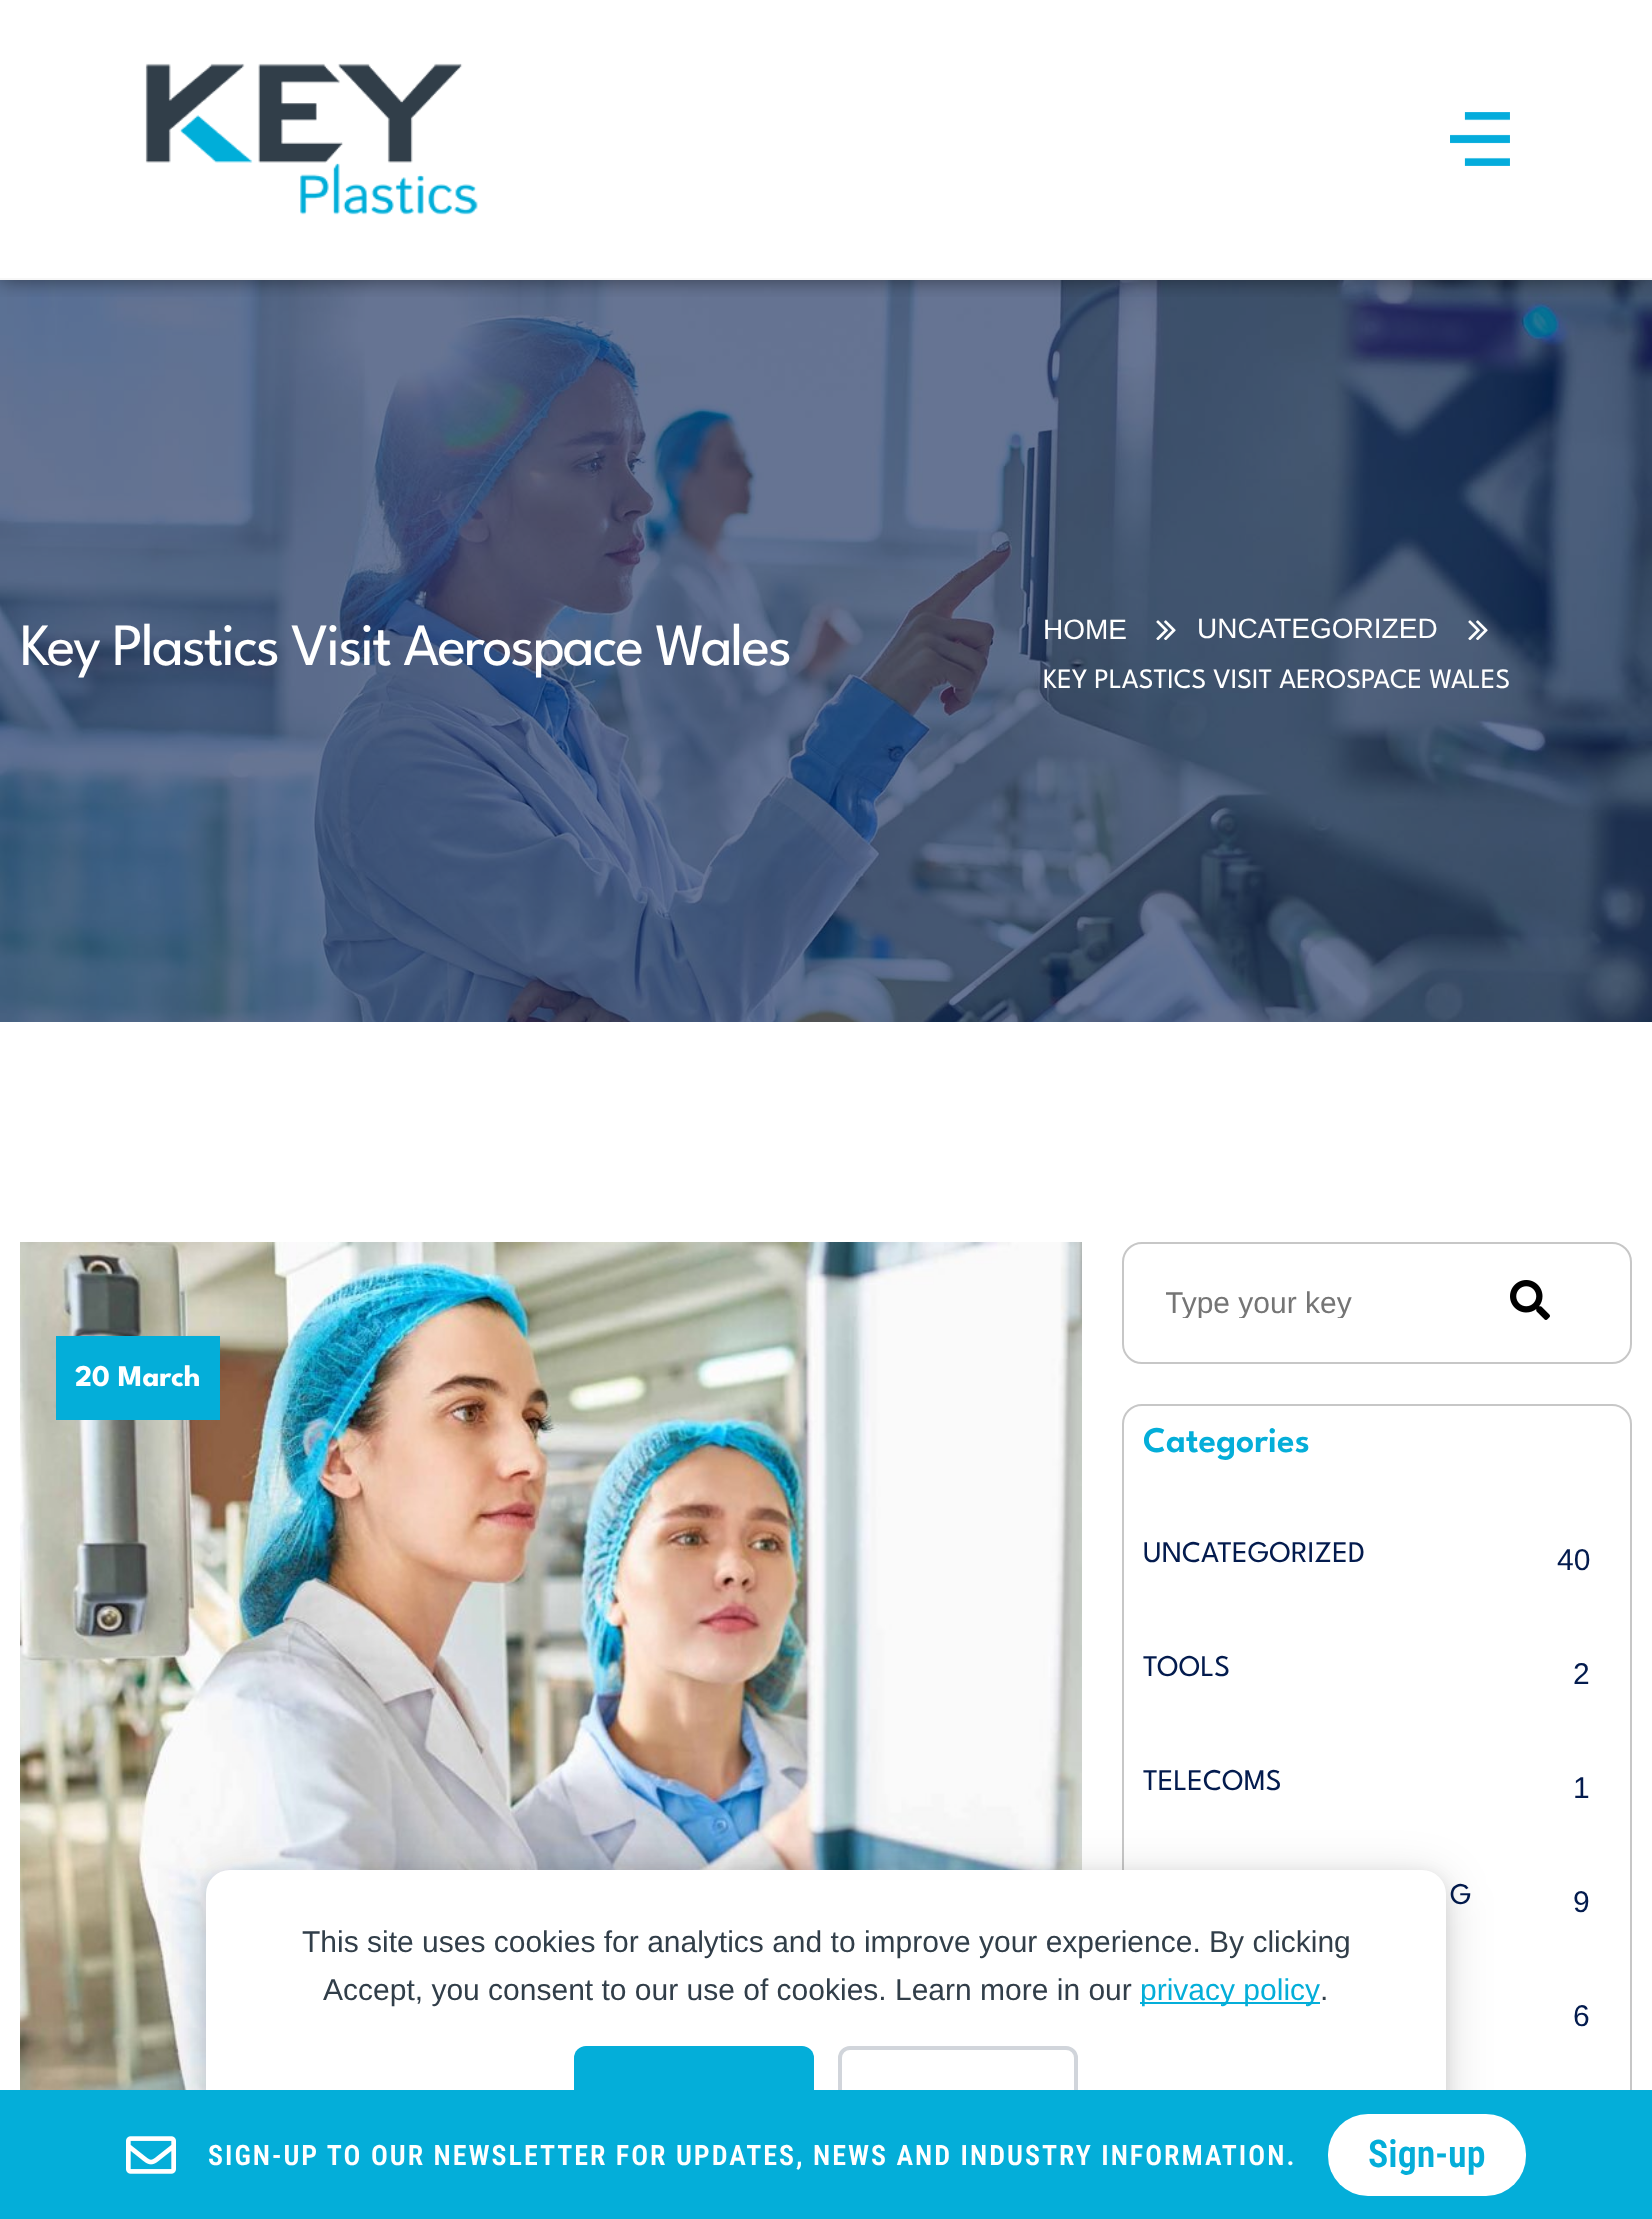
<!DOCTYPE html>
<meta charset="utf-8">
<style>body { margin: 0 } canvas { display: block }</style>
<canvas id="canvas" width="1652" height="2219"></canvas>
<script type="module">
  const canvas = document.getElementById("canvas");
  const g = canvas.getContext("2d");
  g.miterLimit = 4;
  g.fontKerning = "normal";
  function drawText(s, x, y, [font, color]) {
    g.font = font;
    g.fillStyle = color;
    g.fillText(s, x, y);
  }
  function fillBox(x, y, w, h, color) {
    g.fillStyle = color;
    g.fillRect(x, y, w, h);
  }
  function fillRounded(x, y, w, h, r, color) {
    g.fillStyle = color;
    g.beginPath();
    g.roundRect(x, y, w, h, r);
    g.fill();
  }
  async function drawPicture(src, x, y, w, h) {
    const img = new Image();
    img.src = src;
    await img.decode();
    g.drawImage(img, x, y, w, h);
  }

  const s1 = ["60px League Spartan", "#FFFFFF"];
  const s2 = ["28px Liberation Sans", "#FFFFFF"];
  const s3 = ["28px League Spartan", "#FFFFFF"];
  const s4 = ["bold 30px League Spartan", "#FFFFFF"];
  const s5 = ["30px Liberation Sans", "#757575"];
  const s6 = ["600 36px League Spartan", "#04AED9"];
  const s7 = ["30px League Spartan", "#031B4E"];
  const s8 = ["30px Liberation Sans", "#031B4E"];
  const s9 = ["30px Liberation Sans", "#313E49"];
  const s10 = ["30px Liberation Sans", "#04AED9"];
  const s11 = ["600 28px Roboto Condensed", "#FFFFFF"];
  const s12 = ["600 38px Roboto Condensed", "#04AED9"];

  fillBox(0, 0, 1652, 2219, "#FFFFFF");
  await drawPicture("pic3.png", 0, 280, 1652, 742);
  g.save();
  g.beginPath();
  g.rect(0, 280, 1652, 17);
  g.clip();
  g.fillStyle = "rgba(0, 0, 0, 0.5)";
  g.filter = "blur(10px)";
  g.beginPath();
  g.rect(0, 0, 1652, 280);
  g.fill();
  g.filter = "none";
  g.restore();
  await drawPicture("pic1.png", 145, 63, 333, 152);
  await drawPicture("pic2.png", 1450, 112, 60, 54);
  fillBox(0, 278, 1652, 2, "#F7F7F7");
  g.letterSpacing = "-2px";
  drawText("Key Plastics Visit Aerospace Wales", 20, 665, s1);
  g.letterSpacing = "0px";
  drawText("HOME", 1043, 639, s2);
  await drawPicture("pic4.png", 1156, 620, 20, 20);
  drawText("UNCATEGORIZED", 1197, 638, s2);
  await drawPicture("pic5.png", 1468, 620, 20, 20);
  drawText("KEY PLASTICS VISIT AEROSPACE WALES", 1043, 688, s3);
  await drawPicture("pic6.png", 20, 1242, 1062, 848);
  fillBox(56, 1336, 164, 84, "#04AED9");
  drawText("20 March", 75, 1386, s4);
  g.beginPath();
  g.roundRect(1123, 1243, 508, 120, 19);
  g.strokeStyle = "#C7C7C7";
  g.lineWidth = 2;
  g.stroke();
  g.save();
  g.beginPath();
  g.rect(1166, 1284, 186, 34);
  g.clip();
  drawText("Type your key", 1165, 1313, s5);
  g.restore();
  await drawPicture("pic7.png", 1510, 1280, 40, 40);
  g.beginPath();
  g.roundRect(1123, 1405, 508, 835, 19);
  g.stroke();
  drawText("Categories", 1143, 1452, s6);
  drawText("UNCATEGORIZED", 1143, 1562, s7);
  drawText("40", 1557, 1570, s8);
  drawText("TOOLS", 1143, 1676, s7);
  drawText("2", 1573, 1684, s8);
  drawText("TELECOMS", 1143, 1790, s7);
  drawText("1", 1573, 1798, s8);
  drawText("G", 1450, 1904, s7);
  drawText("9", 1573, 1912, s8);
  drawText("6", 1573, 2026, s8);
  g.fillStyle = "rgba(0, 0, 0, 0.1)";
  g.filter = "blur(8px)";
  g.beginPath();
  g.roundRect(206, 1874, 1240, 310, 24);
  g.fill();
  g.filter = "none";
  g.fillStyle = "rgba(0, 0, 0, 0.15)";
  g.filter = "blur(24px)";
  g.beginPath();
  g.roundRect(206, 1878, 1240, 310, 24);
  g.fill();
  g.filter = "none";
  fillRounded(206, 1870, 1240, 310, 24, "#FFFFFF");
  drawText("This site uses cookies for analytics and to improve your experience. By clicking", 302, 1952, s9);
  drawText("Accept, you consent to our use of cookies. Learn more in our", 323, 2000, s9);
  fillBox(1140, 2002, 180, 2, "#04AED9");
  drawText("privacy policy", 1140, 2000, s10);
  drawText(".", 1320, 2000, s9);
  fillRounded(574, 2046, 240, 86, 12, "#04AED9");
  g.beginPath();
  g.roundRect(840, 2048, 236, 82, 10);
  g.strokeStyle = "#D1D5DB";
  g.lineWidth = 4;
  g.stroke();
  fillBox(0, 2090, 1652, 129, "#04AED9");
  await drawPicture("pic8.png", 126, 2136, 50, 38);
  g.letterSpacing = "2px";
  drawText("SIGN-UP TO OUR NEWSLETTER FOR UPDATES, NEWS AND INDUSTRY INFORMATION.", 208, 2165, s11);
  fillRounded(1328, 2114, 198, 82, 40, "#FFFFFF");
  g.letterSpacing = "0px";
  drawText("Sign-up", 1368, 2167, s12);
</script>
